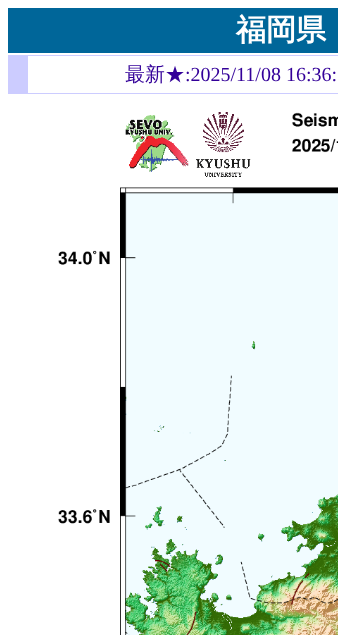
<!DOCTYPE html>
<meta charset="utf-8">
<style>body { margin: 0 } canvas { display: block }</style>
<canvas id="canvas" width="338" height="635"></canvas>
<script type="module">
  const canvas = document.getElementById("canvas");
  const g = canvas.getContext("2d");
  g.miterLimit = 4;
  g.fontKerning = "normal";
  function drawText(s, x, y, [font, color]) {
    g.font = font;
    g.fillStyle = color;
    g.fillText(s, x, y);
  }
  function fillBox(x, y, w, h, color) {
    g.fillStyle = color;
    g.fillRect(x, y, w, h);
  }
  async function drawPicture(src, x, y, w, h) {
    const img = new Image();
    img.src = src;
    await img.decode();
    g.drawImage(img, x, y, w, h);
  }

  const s1 = ["bold 30px WenQuanYi Zen Hei", "#FFFFFF"];
  const s2 = ["500 20px WenQuanYi Zen Hei", "#330099"];
  const s3 = ["20px Liberation Serif", "#330099"];

  fillBox(0, 0, 338, 635, "#FFFFFF");
  fillBox(8, 8, 330, 45, "#006699");
  drawText("福岡県", 236, 40, s1);
  fillBox(28, 55, 310, 1, "#CCCCFF");
  fillBox(28, 93, 310, 1, "#CCCCFF");
  fillBox(8, 55, 20, 39, "#CCCCFF");
  drawText("最新★", 125, 81, s2);
  drawText(":2025/11/08 16:36:", 185, 81, s3);
  await drawPicture("pic1.png", 58, 112, 280, 523);
</script>
